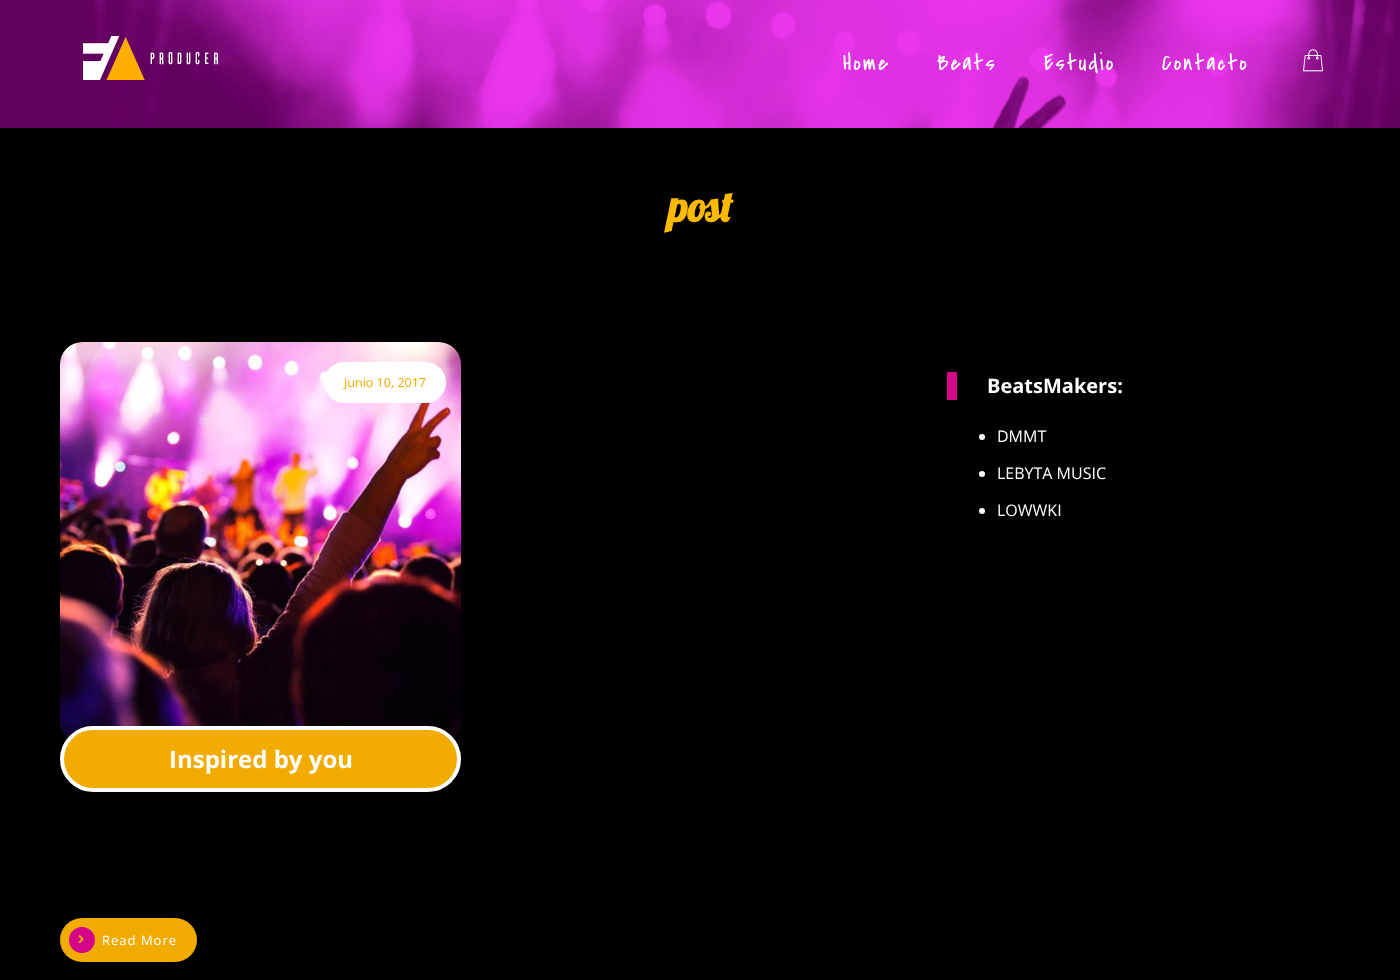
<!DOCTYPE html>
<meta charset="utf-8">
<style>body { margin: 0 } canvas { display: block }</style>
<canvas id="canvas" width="1400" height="980"></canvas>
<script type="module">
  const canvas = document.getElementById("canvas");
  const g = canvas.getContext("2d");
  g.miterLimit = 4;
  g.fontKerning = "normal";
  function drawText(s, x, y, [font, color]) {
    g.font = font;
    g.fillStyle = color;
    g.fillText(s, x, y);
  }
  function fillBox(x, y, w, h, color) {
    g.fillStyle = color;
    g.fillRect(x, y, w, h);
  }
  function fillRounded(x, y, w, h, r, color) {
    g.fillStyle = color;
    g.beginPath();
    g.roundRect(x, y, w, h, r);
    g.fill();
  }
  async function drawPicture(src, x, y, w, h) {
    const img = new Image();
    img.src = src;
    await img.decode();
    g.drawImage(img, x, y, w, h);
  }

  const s1 = ["23px Covered By Your Grace", "#FFFFFF"];
  const s2 = ["bold 42px Lobster", "#FFBA00"];
  const s3 = ["12.5px Open Sans", "#F2AB00"];
  const s4 = ["bold 24px Open Sans", "#FFFFFF"];
  const s5 = ["13px Open Sans", "#FFFFFF"];
  const s6 = ["bold 20px Open Sans", "#FFFFFF"];
  const s7 = ["16px Open Sans", "#FFFFFF"];

  fillBox(0, 0, 1400, 980, "#000000");
  await drawPicture("pic1.png", 0, 0, 1400, 128);
  await drawPicture("pic2.png", 83, 36, 135, 44);
  g.letterSpacing = "2px";
  drawText("Home", 843, 70, s1);
  drawText("Beats", 937, 70, s1);
  drawText("Estudio", 1044, 70, s1);
  drawText("Contacto", 1162, 70, s1);
  await drawPicture("pic3.png", 1303, 49, 20, 23);
  g.letterSpacing = "0px";
  drawText("post", 668, 222, s2);
  fillRounded(60, 342, 401, 401, 22, "#212121");
  await drawPicture("pic4.png", 60, 342, 401, 396);
  fillRounded(324, 362, 122, 41, 20.5, "#FFFFFF");
  drawText("Junio 10, 2017", 344, 387, s3);
  g.beginPath();
  g.roundRect(62, 728, 397, 62, 31);
  g.fill();
  g.strokeStyle = "#FFFFFF";
  g.lineWidth = 4;
  g.stroke();
  drawText("Inspired by you", 169, 768, s4);
  fillRounded(60, 918, 137, 44, 22, "#F2AB00");
  g.fillStyle = "#D50589";
  g.beginPath();
  g.arc(82, 940, 13, 0, Math.PI * 2);
  g.fill();
  await drawPicture("pic5.png", 78, 935, 6, 9);
  g.letterSpacing = "1px";
  drawText("Read More", 102, 945, s5);
  fillBox(947, 372, 10, 28, "#D50589");
  g.letterSpacing = "0px";
  drawText("BeatsMakers:", 987, 393, s6);
  g.beginPath();
  g.arc(982, 437, 3, 0, Math.PI * 2);
  g.fill();
  drawText("DMMT", 997, 442, s7);
  g.beginPath();
  g.arc(982, 474, 3, 0, Math.PI * 2);
  g.fill();
  drawText("LEBYTA MUSIC", 997, 479, s7);
  g.beginPath();
  g.arc(982, 511, 3, 0, Math.PI * 2);
  g.fill();
  drawText("LOWWKI", 997, 516, s7);
</script>
